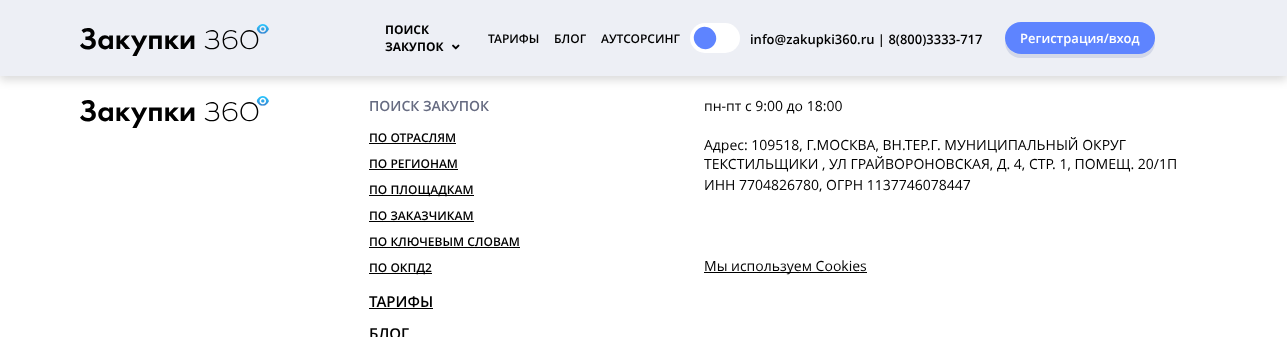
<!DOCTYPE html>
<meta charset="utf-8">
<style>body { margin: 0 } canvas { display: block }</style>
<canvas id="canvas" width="1287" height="337"></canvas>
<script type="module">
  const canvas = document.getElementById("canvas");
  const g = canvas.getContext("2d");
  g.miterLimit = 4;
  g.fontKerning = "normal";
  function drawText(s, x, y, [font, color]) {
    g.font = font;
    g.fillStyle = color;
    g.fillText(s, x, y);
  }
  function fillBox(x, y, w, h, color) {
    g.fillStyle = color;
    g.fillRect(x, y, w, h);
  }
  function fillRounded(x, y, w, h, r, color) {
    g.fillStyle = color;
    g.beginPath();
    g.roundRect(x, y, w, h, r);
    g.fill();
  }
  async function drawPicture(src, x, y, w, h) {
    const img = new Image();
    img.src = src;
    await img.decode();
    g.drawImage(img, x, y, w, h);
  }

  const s1 = ["bold 12px Open Sans", "#000000"];
  const s2 = ["600 12px Open Sans", "#000000"];
  const s3 = ["600 13px Open Sans", "#000000"];
  const s4 = ["600 13px Open Sans", "#FFFFFF"];
  const s5 = ["600 14px Open Sans", "#676C82"];
  const s6 = ["600 15px Open Sans", "#000000"];
  const s7 = ["14px Open Sans", "#000000"];

  fillBox(0, 0, 1287, 337, "#FFFFFF");
  g.fillStyle = "rgba(0, 0, 0, 0.15)";
  g.filter = "blur(5px)";
  g.beginPath();
  g.rect(0, 4, 1287, 76);
  g.fill();
  g.filter = "none";
  fillBox(0, 0, 1287, 76, "#EDEFF5");
  await drawPicture("pic1.png", 80, 24, 189, 32);
  drawText("ПОИСК", 385, 34, s1);
  drawText("ЗАКУПОК", 385, 51, s1);
  await drawPicture("pic2.png", 452, 44, 8, 6);
  drawText("ТАРИФЫ", 488, 43, s2);
  drawText("БЛОГ", 554, 43, s2);
  drawText("АУТСОРСИНГ", 601, 43, s2);
  fillRounded(690, 23, 50, 30, 15, "#FFFFFF");
  g.fillStyle = "#5E84FF";
  g.beginPath();
  g.moveTo(697, 30);
  g.bezierCurveTo(707.5, 20, 723, 35.5, 713, 46);
  g.bezierCurveTo(702.5, 56, 687, 40.5, 697, 30);
  g.closePath();
  g.fill();
  drawText("info@zakupki360.ru | 8(800)3333-717", 750, 44, s3);
  g.fillStyle = "#D3D8E8";
  g.beginPath();
  g.moveTo(1005, 40);
  g.lineTo(1005, 42);
  g.bezierCurveTo(1005, 51, 1012, 58, 1021, 58);
  g.lineTo(1139, 58);
  g.bezierCurveTo(1148, 58, 1155, 51, 1155, 42);
  g.lineTo(1155, 40);
  g.bezierCurveTo(1154, 48, 1147, 54, 1139, 54);
  g.lineTo(1021, 54);
  g.bezierCurveTo(1013, 54, 1006, 48, 1005, 40);
  g.closePath();
  g.fill();
  fillRounded(1005, 22, 150, 32, 16, "#5E84FF");
  drawText("Регистрация/вход", 1020, 43, s4);
  await drawPicture("pic3.png", 80, 96, 189, 32);
  drawText("ПОИСК ЗАКУПОК", 369, 111, s5);
  drawText("ПО ОТРАСЛЯМ", 369, 142, s2);
  fillBox(369, 143, 87, 1, "#000000");
  drawText("ПО РЕГИОНАМ", 369, 168, s2);
  fillBox(369, 169, 89, 1, "#000000");
  fillBox(369, 195, 105, 1, "#000000");
  drawText("ПО ПЛОЩАДКАМ", 369, 194, s2);
  drawText("ПО ЗАКАЗЧИКАМ", 369, 220, s2);
  fillBox(369, 221, 105, 1, "#000000");
  drawText("ПО КЛЮЧЕВЫМ СЛОВАМ", 369, 246, s2);
  fillBox(369, 247, 151, 1, "#000000");
  fillBox(369, 273, 63, 1, "#000000");
  drawText("ПО ОКПД2", 369, 272, s2);
  drawText("ТАРИФЫ", 369, 307, s6);
  fillBox(369, 308, 64, 1, "#000000");
  drawText("БЛОГ", 369, 339, s6);
  drawText("пн-пт с 9:00 до 18:00", 704, 111, s7);
  drawText("Адрес: 109518, Г.МОСКВА, ВН.ТЕР.Г. МУНИЦИПАЛЬНЫЙ ОКРУГ", 704, 150, s7);
  drawText("ТЕКСТИЛЬЩИКИ , УЛ ГРАЙВОРОНОВСКАЯ, Д. 4, СТР. 1, ПОМЕЩ. 20/1П", 704, 169, s7);
  drawText("ИНН 7704826780, ОГРН 1137746078447", 704, 190, s7);
  fillBox(704, 272, 163, 1, "#000000");
  drawText("Мы используем Cookies", 704, 271, s7);
</script>
